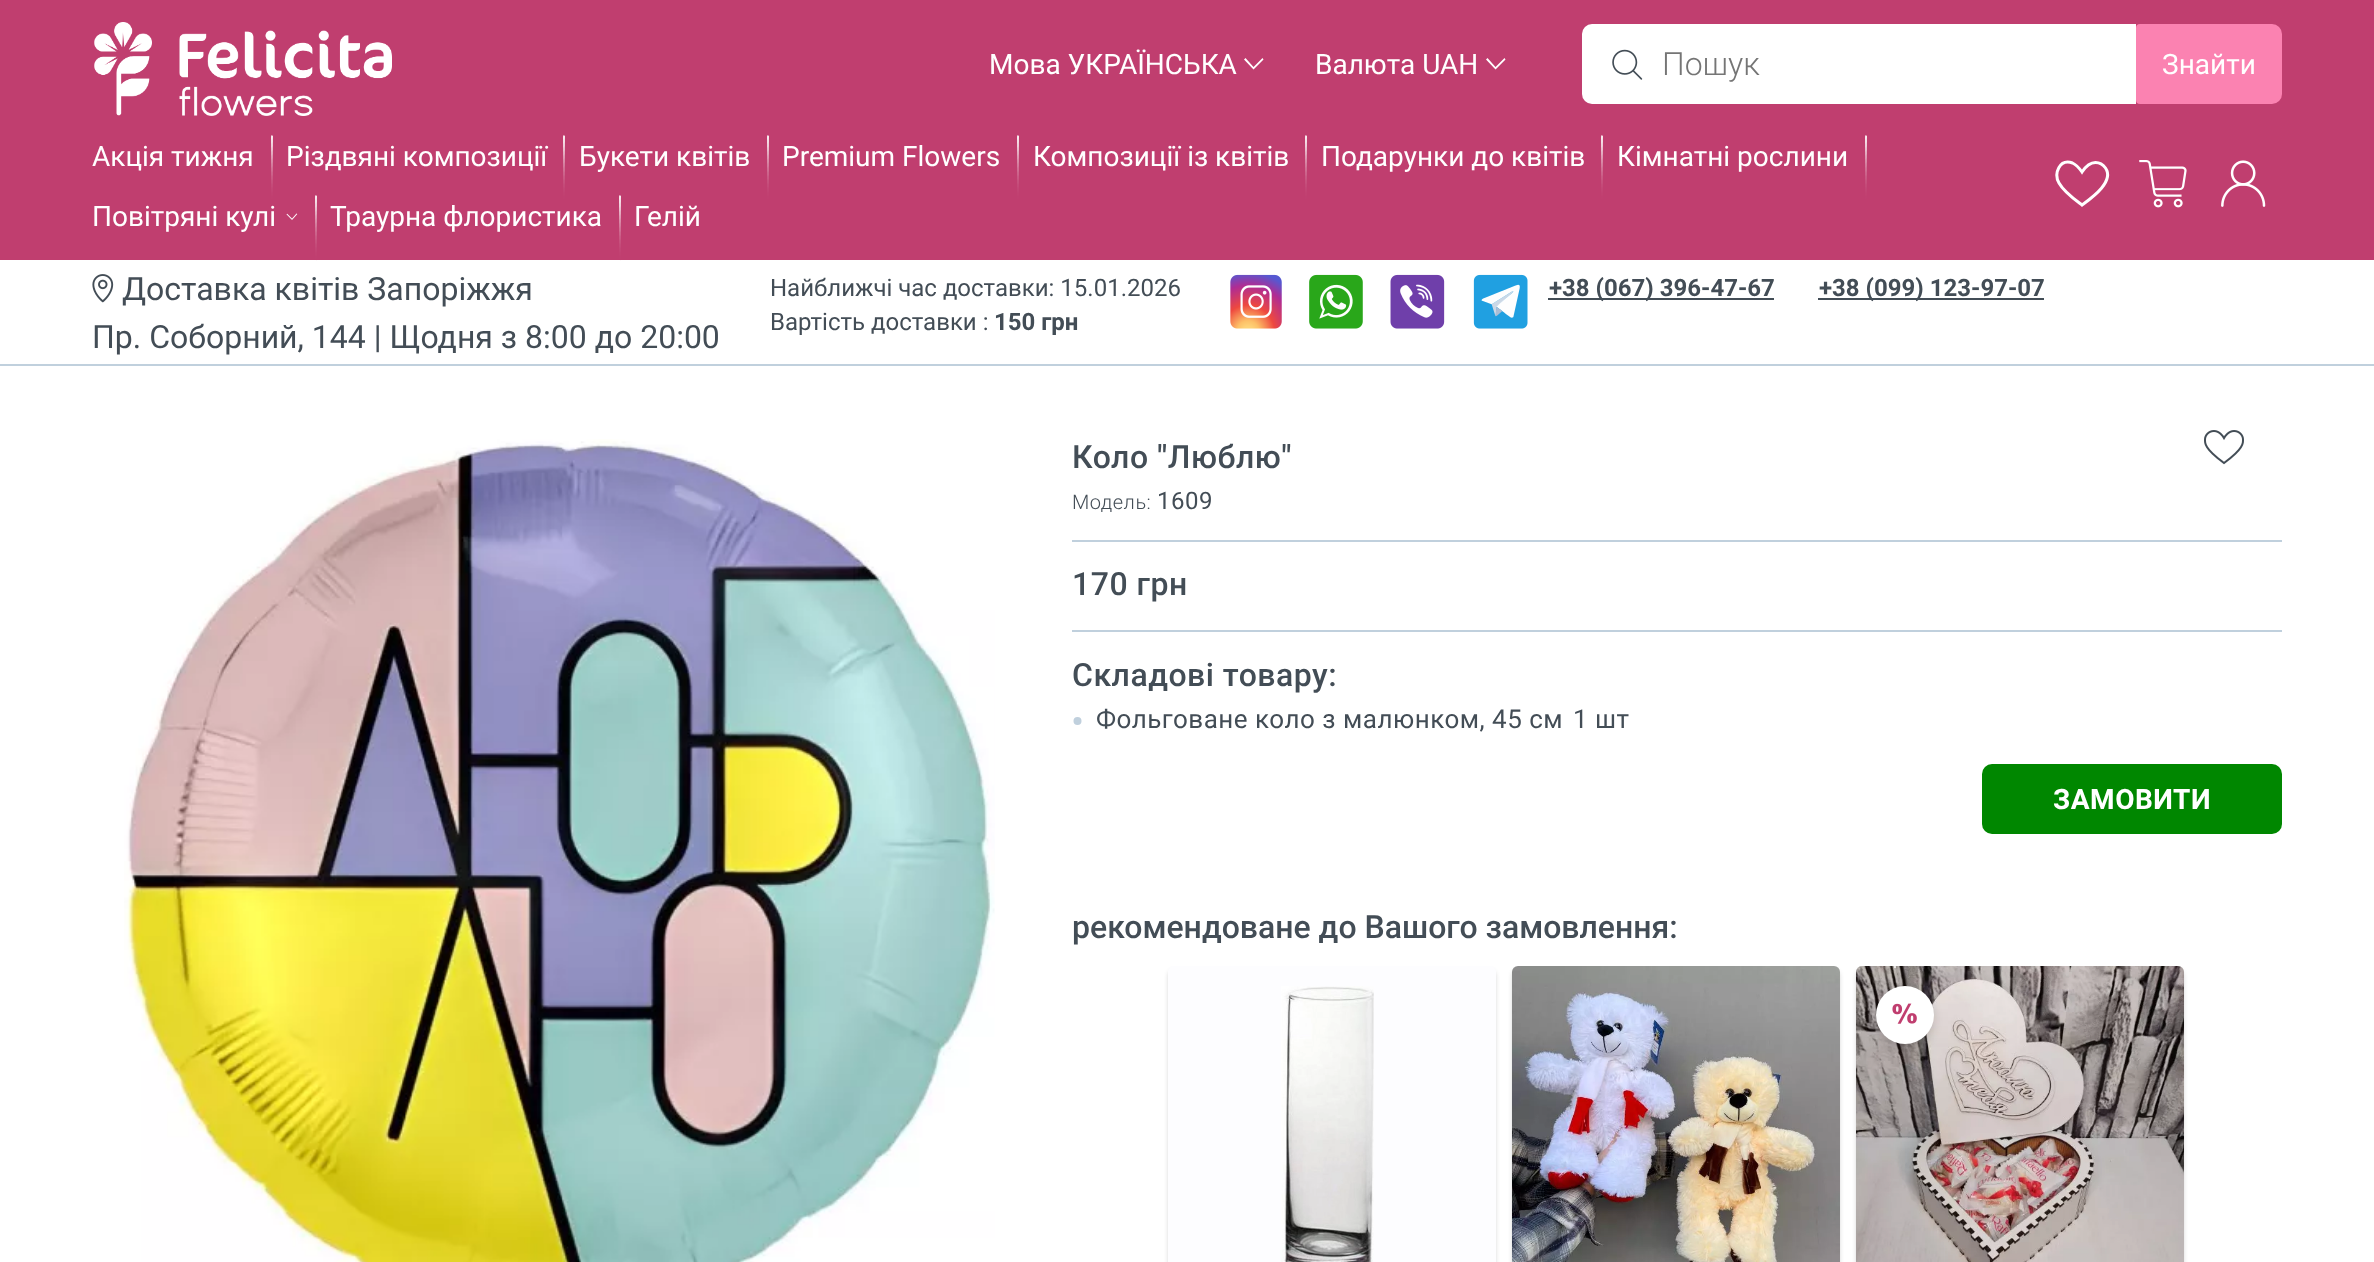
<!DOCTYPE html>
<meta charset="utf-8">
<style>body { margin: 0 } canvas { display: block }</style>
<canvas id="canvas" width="2374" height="1262"></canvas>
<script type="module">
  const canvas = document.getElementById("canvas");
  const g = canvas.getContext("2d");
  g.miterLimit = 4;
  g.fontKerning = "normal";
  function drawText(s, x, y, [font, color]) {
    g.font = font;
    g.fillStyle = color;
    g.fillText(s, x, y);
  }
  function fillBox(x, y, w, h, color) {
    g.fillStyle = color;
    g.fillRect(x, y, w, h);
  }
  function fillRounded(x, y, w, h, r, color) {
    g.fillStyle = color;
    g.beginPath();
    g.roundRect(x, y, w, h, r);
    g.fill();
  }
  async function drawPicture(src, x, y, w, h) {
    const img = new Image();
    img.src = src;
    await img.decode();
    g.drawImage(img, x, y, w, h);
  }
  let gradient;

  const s1 = ["28px Roboto", "#FFFFFF"];
  const s2 = ["300 32px Roboto", "#757575"];
  const s3 = ["32px Roboto", "#434D56"];
  const s4 = ["24px Roboto", "#434D56"];
  const s5 = ["bold 24px Roboto", "#434D56"];
  const s6 = ["500 32px Roboto", "#434D56"];
  const s7 = ["300 20px Roboto", "#434D56"];
  const s8 = ["26px Roboto", "#434D56"];
  const s9 = ["bold 28px Roboto", "#FFFFFF"];

  fillBox(0, 0, 2374, 1262, "#FFFFFF");
  fillBox(0, 0, 2374, 260, "#C03E6F");
  await drawPicture("pic1.png", 94, 22, 298, 94);
  drawText("Мова УКРАЇНСЬКА", 989, 74, s1);
  g.beginPath();
  g.moveTo(1262.5, 58);
  g.lineTo(1263.5, 59.5);
  g.lineTo(1253.5, 69.5);
  g.lineTo(1244, 59.5);
  g.lineTo(1245.5, 58);
  g.lineTo(1253.5, 67);
  g.closePath();
  g.fill();
  drawText("Валюта UAH", 1315, 74, s1);
  g.beginPath();
  g.moveTo(1504.5, 58);
  g.lineTo(1505.5, 59.5);
  g.lineTo(1495.5, 69.5);
  g.lineTo(1486, 59.5);
  g.lineTo(1487.5, 58);
  g.lineTo(1495.5, 67);
  g.closePath();
  g.fill();
  g.beginPath();
  g.roundRect(1582, 24, 554, 80, [10, 0, 0, 10]);
  g.fill();
  await drawPicture("pic2.png", 1612, 49, 31, 31);
  drawText("Пошук", 1662, 75, s2);
  g.fillStyle = "#FB82B1";
  g.beginPath();
  g.roundRect(2136, 24, 146, 80, [4, 10, 10, 4]);
  g.fill();
  drawText("Знайти", 2162, 74, s1);
  drawText("Акція тижня", 92, 166, s1);
  gradient = g.createLinearGradient(272, 202, 272, 113);
  gradient.addColorStop(0, "#C03E6F");
  gradient.addColorStop(0.62, "#F6E2E9");
  gradient.addColorStop(1, "#FFFDFD");
  g.fillStyle = gradient;
  g.beginPath();
  g.moveTo(272, 202);
  g.lineTo(271, 137);
  g.bezierCurveTo(271, 135, 272, 135, 273, 136);
  g.closePath();
  g.fill();
  drawText("Різдвяні композиції", 286, 166, s1);
  gradient = g.createLinearGradient(564, 202, 564, 113);
  gradient.addColorStop(0, "#C03E6F");
  gradient.addColorStop(0.62, "#F6E2E9");
  gradient.addColorStop(1, "#FFFDFD");
  g.fillStyle = gradient;
  g.beginPath();
  g.moveTo(564, 202);
  g.lineTo(563, 137);
  g.bezierCurveTo(563, 135, 564, 135, 565, 136);
  g.closePath();
  g.fill();
  drawText("Букети квітів", 579, 166, s1);
  gradient = g.createLinearGradient(768, 202, 768, 113);
  gradient.addColorStop(0, "#C03E6F");
  gradient.addColorStop(0.62, "#F6E2E9");
  gradient.addColorStop(1, "#FFFDFD");
  g.fillStyle = gradient;
  g.beginPath();
  g.moveTo(768, 202);
  g.lineTo(767, 137);
  g.bezierCurveTo(767, 135, 768, 135, 769, 136);
  g.closePath();
  g.fill();
  drawText("Premium Flowers", 782, 166, s1);
  gradient = g.createLinearGradient(1018, 202, 1018, 113);
  gradient.addColorStop(0, "#C03E6F");
  gradient.addColorStop(0.62, "#F6E2E9");
  gradient.addColorStop(1, "#FFFDFD");
  g.fillStyle = gradient;
  g.beginPath();
  g.moveTo(1018, 202);
  g.lineTo(1017, 137);
  g.bezierCurveTo(1017, 135, 1018, 135, 1019, 136);
  g.closePath();
  g.fill();
  drawText("Композиції із квітів", 1033, 166, s1);
  gradient = g.createLinearGradient(1306, 202, 1306, 113);
  gradient.addColorStop(0, "#C03E6F");
  gradient.addColorStop(0.62, "#F6E2E9");
  gradient.addColorStop(1, "#FFFDFD");
  g.fillStyle = gradient;
  g.beginPath();
  g.moveTo(1306, 202);
  g.lineTo(1305, 137);
  g.bezierCurveTo(1305, 135, 1306, 135, 1307, 136);
  g.closePath();
  g.fill();
  drawText("Подарунки до квітів", 1321, 166, s1);
  gradient = g.createLinearGradient(1602, 202, 1602, 113);
  gradient.addColorStop(0, "#C03E6F");
  gradient.addColorStop(0.62, "#F6E2E9");
  gradient.addColorStop(1, "#FFFDFD");
  g.fillStyle = gradient;
  g.beginPath();
  g.moveTo(1602, 202);
  g.lineTo(1601, 137);
  g.bezierCurveTo(1601, 135, 1602, 135, 1603, 136);
  g.closePath();
  g.fill();
  drawText("Кімнатні рослини", 1617, 166, s1);
  gradient = g.createLinearGradient(1866, 202, 1866, 113);
  gradient.addColorStop(0, "#C03E6F");
  gradient.addColorStop(0.62, "#F6E2E9");
  gradient.addColorStop(1, "#FFFDFD");
  g.fillStyle = gradient;
  g.beginPath();
  g.moveTo(1866, 202);
  g.lineTo(1865, 137);
  g.bezierCurveTo(1865, 135, 1866, 135, 1867, 136);
  g.closePath();
  g.fill();
  drawText("Повітряні кулі", 92, 226, s1);
  await drawPicture("pic3.png", 286, 213, 12, 7);
  gradient = g.createLinearGradient(316, 262, 316, 173);
  gradient.addColorStop(0, "#C03E6F");
  gradient.addColorStop(0.62, "#F6E2E9");
  gradient.addColorStop(1, "#FFFDFD");
  g.fillStyle = gradient;
  g.beginPath();
  g.moveTo(316, 262);
  g.lineTo(315, 197);
  g.bezierCurveTo(315, 195, 316, 195, 317, 196);
  g.closePath();
  g.fill();
  drawText("Траурна флористика", 330, 226, s1);
  gradient = g.createLinearGradient(620, 262, 620, 173);
  gradient.addColorStop(0, "#C03E6F");
  gradient.addColorStop(0.62, "#F6E2E9");
  gradient.addColorStop(1, "#FFFDFD");
  g.fillStyle = gradient;
  g.beginPath();
  g.moveTo(620, 262);
  g.lineTo(619, 197);
  g.bezierCurveTo(619, 195, 620, 195, 621, 196);
  g.closePath();
  g.fill();
  drawText("Гелій", 634, 226, s1);
  g.beginPath();
  g.moveTo(2095.5, 162.5);
  g.bezierCurveTo(2099.5, 162.5, 2103, 164.5, 2105.5, 168);
  g.bezierCurveTo(2115, 182, 2090, 199, 2082, 205);
  g.bezierCurveTo(2074, 199, 2064, 192, 2059, 183);
  g.bezierCurveTo(2053.5, 173.5, 2059.5, 158.5, 2072.5, 163);
  g.bezierCurveTo(2077, 165, 2079.5, 168.5, 2082, 172);
  g.bezierCurveTo(2085, 167.5, 2089, 162.5, 2095.5, 162.5);
  g.closePath();
  g.strokeStyle = "#FFFFFF";
  g.lineWidth = 3;
  g.stroke();
  await drawPicture("pic4.png", 2139, 160, 48, 48);
  await drawPicture("pic5.png", 2221, 160, 45, 47);
  fillBox(0, 364, 2374, 2, "#C0D0DD");
  await drawPicture("pic6.png", 92, 274, 22, 29);
  drawText("Доставка квітів Запоріжжя", 122, 300, s3);
  drawText("Пр. Соборний, 144 | Щодня з 8:00 до 20:00", 92, 348, s3);
  drawText("Найближчі час доставки: 15.01.2026", 770, 296, s4);
  drawText("Вартість доставки :", 770, 330, s4);
  drawText("150 грн", 994, 330, s5);
  await drawPicture("pic7.png", 1230, 274, 52, 55);
  await drawPicture("pic8.png", 1309, 274, 54, 55);
  await drawPicture("pic9.png", 1390, 274, 55, 55);
  await drawPicture("pic10.png", 1473, 274, 55, 55);
  fillBox(1548, 298, 226, 2, "#434D56");
  drawText("+38 (067) 396-47-67", 1549, 296, s5);
  fillBox(1818, 298, 226, 2, "#434D56");
  drawText("+38 (099) 123-97-07", 1819, 296, s5);
  await drawPicture("pic11.png", 124, 439, 871, 823);
  g.letterSpacing = "0.5px";
  drawText("Коло \"Люблю\"", 1072, 468, s6);
  await drawPicture("pic12.png", 2204, 430, 40, 35);
  fillBox(1072, 540, 1210, 2, "#C0D0DD");
  drawText("Модель:", 1072, 509, s7);
  drawText("1609", 1157, 509, s4);
  fillBox(1072, 630, 1210, 2, "#C0D0DD");
  drawText("170 грн", 1072, 595, s6);
  drawText("Складові товару:", 1072, 686, s6);
  g.fillStyle = "#C0D0DD";
  g.beginPath();
  g.arc(1077.5, 721, 4, 0, Math.PI * 2);
  g.fill();
  drawText("Фольговане коло з малюнком, 45 см", 1096, 728, s8);
  drawText("1 шт", 1573, 728, s8);
  fillRounded(1982, 764, 300, 70, 10, "#008700");
  drawText("ЗАМОВИТИ", 2053, 809, s9);
  g.letterSpacing = "0px";
  drawText("рекомендоване до Вашого замовлення:", 1072, 938, s6);
  g.fillStyle = "rgba(0, 0, 0, 0.15)";
  g.filter = "blur(2px)";
  g.beginPath();
  g.roundRect(1168, 970, 328, 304, 6);
  g.fill();
  g.filter = "none";
  fillRounded(1168, 966, 328, 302, 6, "#FDFDFF");
  await drawPicture("pic13.png", 1281, 986, 93, 276);
  g.fillStyle = "rgba(0, 0, 0, 0.15)";
  g.filter = "blur(2px)";
  g.beginPath();
  g.roundRect(1512, 970, 328, 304, 6);
  g.fill();
  g.filter = "none";
  await drawPicture("pic14.png", 1512, 966, 328, 296);
  g.filter = "blur(2px)";
  g.beginPath();
  g.roundRect(1856, 970, 328, 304, 6);
  g.fill();
  g.filter = "none";
  await drawPicture("pic15.png", 1856, 966, 328, 296);
  g.filter = "blur(5px)";
  g.beginPath();
  g.roundRect(1876, 990, 58, 58, 29);
  g.fill();
  g.filter = "none";
  g.fillStyle = "#FFFFFF";
  g.beginPath();
  g.arc(1905, 1015, 29, 0, Math.PI * 2);
  g.fill();
  g.beginPath();
  g.arc(1895, 967, 1, 0, Math.PI * 2);
  g.fill();
  await drawPicture("pic16.png", 1892, 1003, 25, 21);
</script>
